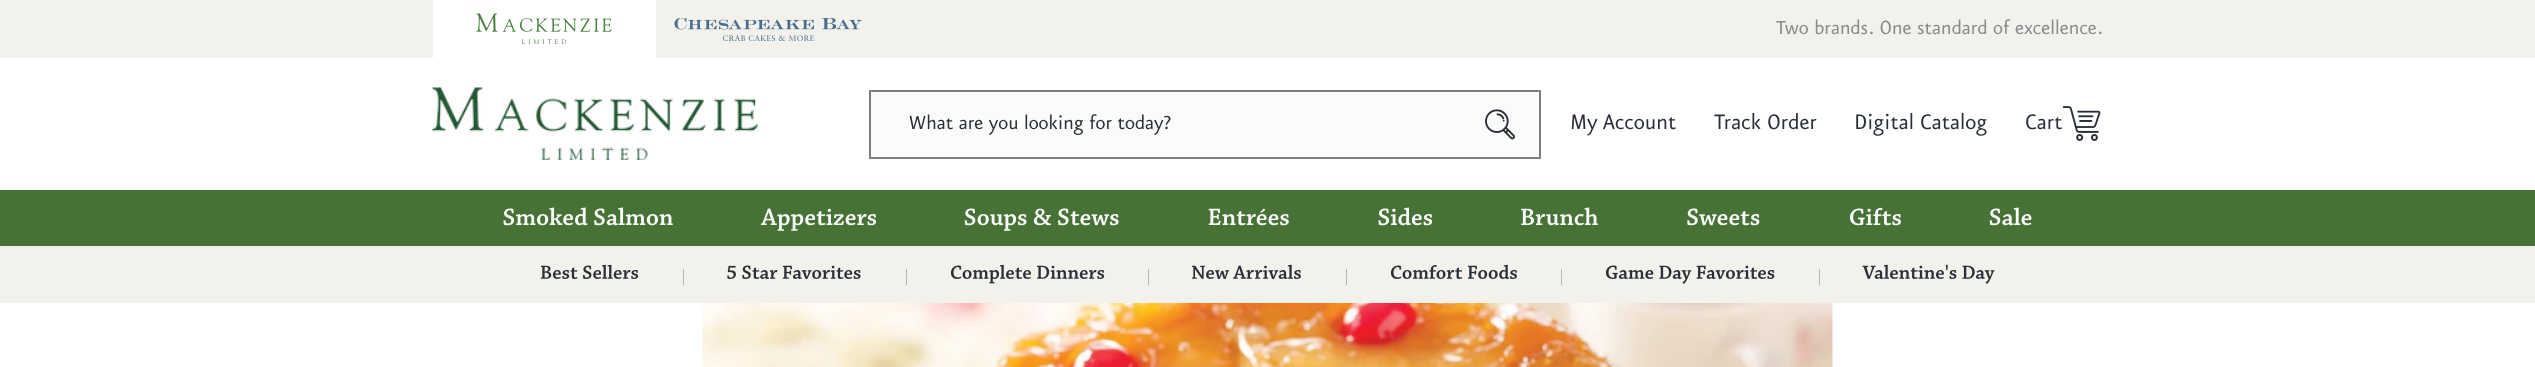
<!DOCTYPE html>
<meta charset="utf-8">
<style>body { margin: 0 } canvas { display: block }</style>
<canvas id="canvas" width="2535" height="367"></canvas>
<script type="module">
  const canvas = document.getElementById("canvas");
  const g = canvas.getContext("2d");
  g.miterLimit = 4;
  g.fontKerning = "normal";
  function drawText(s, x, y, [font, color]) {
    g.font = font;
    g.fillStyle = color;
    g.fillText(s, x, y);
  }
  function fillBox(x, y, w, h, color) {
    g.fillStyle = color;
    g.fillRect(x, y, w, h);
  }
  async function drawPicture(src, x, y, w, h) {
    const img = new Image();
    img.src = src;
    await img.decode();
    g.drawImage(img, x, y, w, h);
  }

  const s1 = ["22.5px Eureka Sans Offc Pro", "#878A8E"];
  const s2 = ["22.5px Eureka Sans Offc Pro", "#292F38"];
  const s3 = ["25px Eureka Sans Offc Pro", "#292F38"];

  fillBox(0, 0, 2535, 367, "#FFFFFF");
  fillBox(0, 0, 2535, 58, "#F2F1EC");
  fillBox(433, 0, 223, 58, "#FFFFFF");
  await drawPicture("pic1.png", 476, 13, 136, 31);
  await drawPicture("pic2.png", 674, 18, 189, 23);
  drawText("Two brands. One standard of excellence.", 1776, 34, s1);
  await drawPicture("pic3.png", 432, 87, 326, 73);
  g.fillStyle = "#FBFBFB";
  g.beginPath();
  g.rect(870.5, 91.5, 669, 66);
  g.fill();
  g.strokeStyle = "#7E7E7F";
  g.stroke();
  await drawPicture("pic4.png", 1485, 109, 30, 31);
  g.strokeStyle = "#7D7D7D";
  g.strokeRect(869.5, 90.5, 671, 68);
  drawText("What are you looking for today?", 909, 129, s2);
  drawText("My Account", 1570, 129, s3);
  drawText("Track Order", 1714, 129, s3);
  drawText("Digital Catalog", 1854, 129, s3);
  drawText("Cart", 2025, 129, s3);
  await drawPicture("pic5.png", 2063, 106, 38, 35);
  fillBox(0, 190, 2535, 56, "#467235");
  await drawPicture("pic6.png", 503, 207, 170, 19);
  await drawPicture("pic7.png", 760, 208, 117, 23);
  await drawPicture("pic8.png", 964, 208, 155, 23);
  await drawPicture("pic9.png", 1208, 208, 81, 18);
  await drawPicture("pic10.png", 1378, 207, 55, 19);
  await drawPicture("pic11.png", 1521, 207, 77, 19);
  await drawPicture("pic12.png", 1687, 208, 73, 18);
  await drawPicture("pic13.png", 1849, 207, 52, 19);
  await drawPicture("pic14.png", 1989, 207, 43, 19);
  fillBox(0, 246, 2535, 57, "#F2F1EC");
  await drawPicture("pic15.png", 540, 264, 99, 15);
  fillBox(683, 269, 1, 16, "#B6B7B6");
  await drawPicture("pic16.png", 727, 265, 134, 14);
  fillBox(906, 269, 1, 16, "#B6B7B6");
  await drawPicture("pic17.png", 950, 264, 155, 20);
  fillBox(1148, 269, 1, 16, "#B6B7B6");
  await drawPicture("pic18.png", 1192, 264, 109, 15);
  fillBox(1346, 269, 1, 16, "#B6B7B6");
  await drawPicture("pic19.png", 1390, 264, 127, 15);
  fillBox(1561, 269, 1, 16, "#B6B7B6");
  await drawPicture("pic20.png", 1605, 265, 170, 19);
  fillBox(1819, 269, 1, 16, "#B6B7B6");
  await drawPicture("pic21.png", 1862, 264, 133, 20);
  await drawPicture("pic22.png", 702, 303, 1131, 64);
</script>
